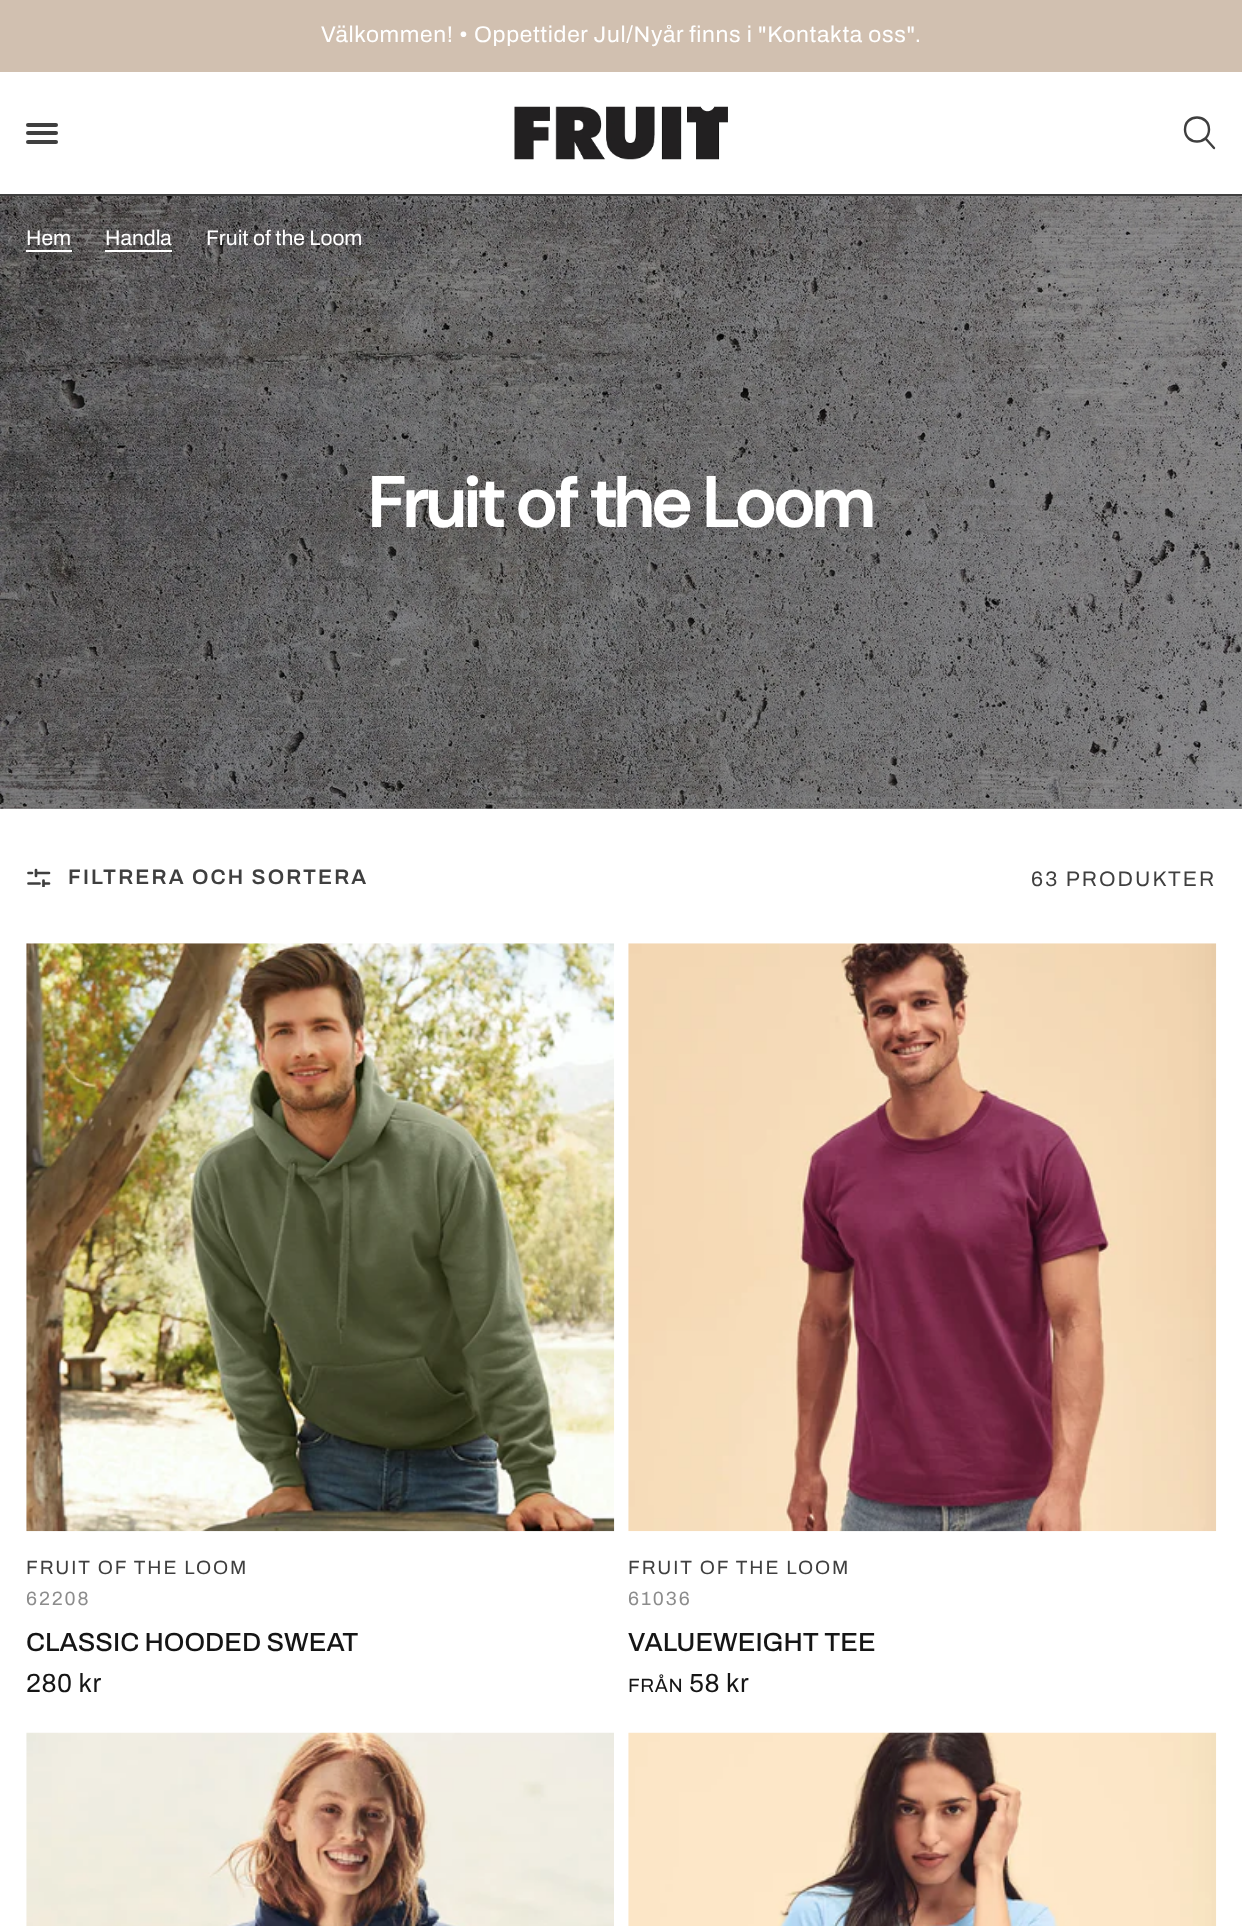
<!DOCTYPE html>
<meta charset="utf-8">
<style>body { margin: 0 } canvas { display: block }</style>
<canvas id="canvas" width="1242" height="1926"></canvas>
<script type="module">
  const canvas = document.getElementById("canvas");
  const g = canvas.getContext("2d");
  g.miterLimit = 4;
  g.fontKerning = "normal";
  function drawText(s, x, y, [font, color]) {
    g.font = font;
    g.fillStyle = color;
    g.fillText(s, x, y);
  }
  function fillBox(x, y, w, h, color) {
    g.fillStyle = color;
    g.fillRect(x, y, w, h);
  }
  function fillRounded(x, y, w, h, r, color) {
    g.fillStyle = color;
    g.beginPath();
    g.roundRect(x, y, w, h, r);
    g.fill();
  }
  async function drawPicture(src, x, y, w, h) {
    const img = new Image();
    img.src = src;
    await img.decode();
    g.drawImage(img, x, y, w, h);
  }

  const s1 = ["22.75px Archivo", "#FFFFFF"];
  const s2 = ["21px Archivo", "#FFFFFF"];
  const s3 = ["italic 21px Archivo", "#7F7D7D"];
  const s4 = ["italic 21px Archivo", "#767575"];
  const s5 = ["bold 70px DM Sans", "#FFFFFF"];
  const s6 = ["600 21px Archivo", "#3F3F3F"];
  const s7 = ["21px Archivo", "#3F3F3F"];
  const s8 = ["19.25px Archivo", "#3F3F3F"];
  const s9 = ["19.25px Archivo", "#8C8C8C"];
  const s10 = ["500 26.25px Archivo", "#151515"];
  const s11 = ["26.25px Archivo", "#151515"];
  const s12 = ["19.25px Archivo", "#151515"];

  fillBox(0, 0, 1242, 1926, "#FFFFFF");
  fillBox(0, 808, 1242, 1, "#999999");
  fillBox(0, 0, 1242, 72, "#D1C0B0");
  g.save();
  g.beginPath();
  g.rect(184, 25, 875, 22);
  g.clip();
  g.letterSpacing = "0.68px";
  drawText("Välkommen! • Öppettider Jul/Nyår finns i \"Kontakta oss\".", 321, 42, s1);
  g.restore();
  fillBox(0, 194, 1242, 2, "#3F3F3F");
  fillRounded(26, 123, 32, 4, 2, "#3F3F3F");
  fillRounded(26, 131, 32, 4, 2, "#3F3F3F");
  fillRounded(26, 140, 32, 4, 2, "#3F3F3F");
  await drawPicture("pic1.png", 514, 106, 214, 54);
  g.beginPath();
  g.moveTo(1206, 139);
  g.lineTo(1214, 148);
  g.moveTo(1209, 129.5);
  g.bezierCurveTo(1209, 145.5, 1185, 145.5, 1185, 129.5);
  g.bezierCurveTo(1185, 113.5, 1209, 113.5, 1209, 129.5);
  g.closePath();
  g.strokeStyle = "#3F3F3F";
  g.lineWidth = 2.4;
  g.lineCap = "round";
  g.lineJoin = "round";
  g.stroke();
  await drawPicture("pic2.png", 0, 196, 1242, 613);
  drawText("Hem", 26, 245, s2);
  fillBox(26, 250, 46, 2, "#FFFFFF");
  drawText("/", 85, 245, s3);
  drawText("Handla", 105, 245, s2);
  fillBox(105, 250, 67, 2, "#FFFFFF");
  drawText("/", 186, 245, s4);
  drawText("Fruit of the Loom", 206, 245, s2);
  drawText("Fruit of the Loom", 369, 527, s5);
  g.save();
  g.beginPath();
  g.rect(26, 868, 25, 19);
  g.clip();
  g.beginPath();
  g.moveTo(39.5, 883.5);
  g.lineTo(28.5, 883.5);
  g.moveTo(49, 883.5);
  g.lineTo(43.5, 883.5);
  g.moveTo(32, 873);
  g.lineTo(28.5, 873);
  g.moveTo(49, 873);
  g.lineTo(36, 873);
  g.moveTo(36, 870);
  g.lineTo(36, 876);
  g.moveTo(43.5, 886.5);
  g.lineTo(43.5, 880.5);
  g.lineWidth = 2.7;
  g.stroke();
  g.restore();
  g.letterSpacing = "2.1px";
  drawText("FILTRERA OCH SORTERA", 68, 884, s6);
  drawText("63 PRODUKTER", 1031, 886, s7);
  await drawPicture("pic3.png", 26, 943, 589, 589);
  g.letterSpacing = "1.9px";
  drawText("FRUIT OF THE LOOM", 26, 1574, s8);
  drawText("62208", 26, 1605, s9);
  g.letterSpacing = "0px";
  drawText("CLASSIC HOODED SWEAT", 26, 1651, s10);
  g.letterSpacing = "0.5px";
  drawText("280 kr", 26, 1692, s11);
  await drawPicture("pic4.png", 628, 943, 589, 589);
  g.letterSpacing = "1.9px";
  drawText("FRUIT OF THE LOOM", 628, 1574, s8);
  drawText("61036", 628, 1605, s9);
  g.letterSpacing = "0px";
  drawText("VALUEWEIGHT TEE", 628, 1651, s10);
  g.letterSpacing = "0.5px";
  drawText("FRÅN", 628, 1692, s12);
  drawText("58 kr", 689, 1692, s11);
  await drawPicture("pic5.png", 26, 1732, 588, 194);
  await drawPicture("pic6.png", 628, 1732, 589, 194);
</script>
